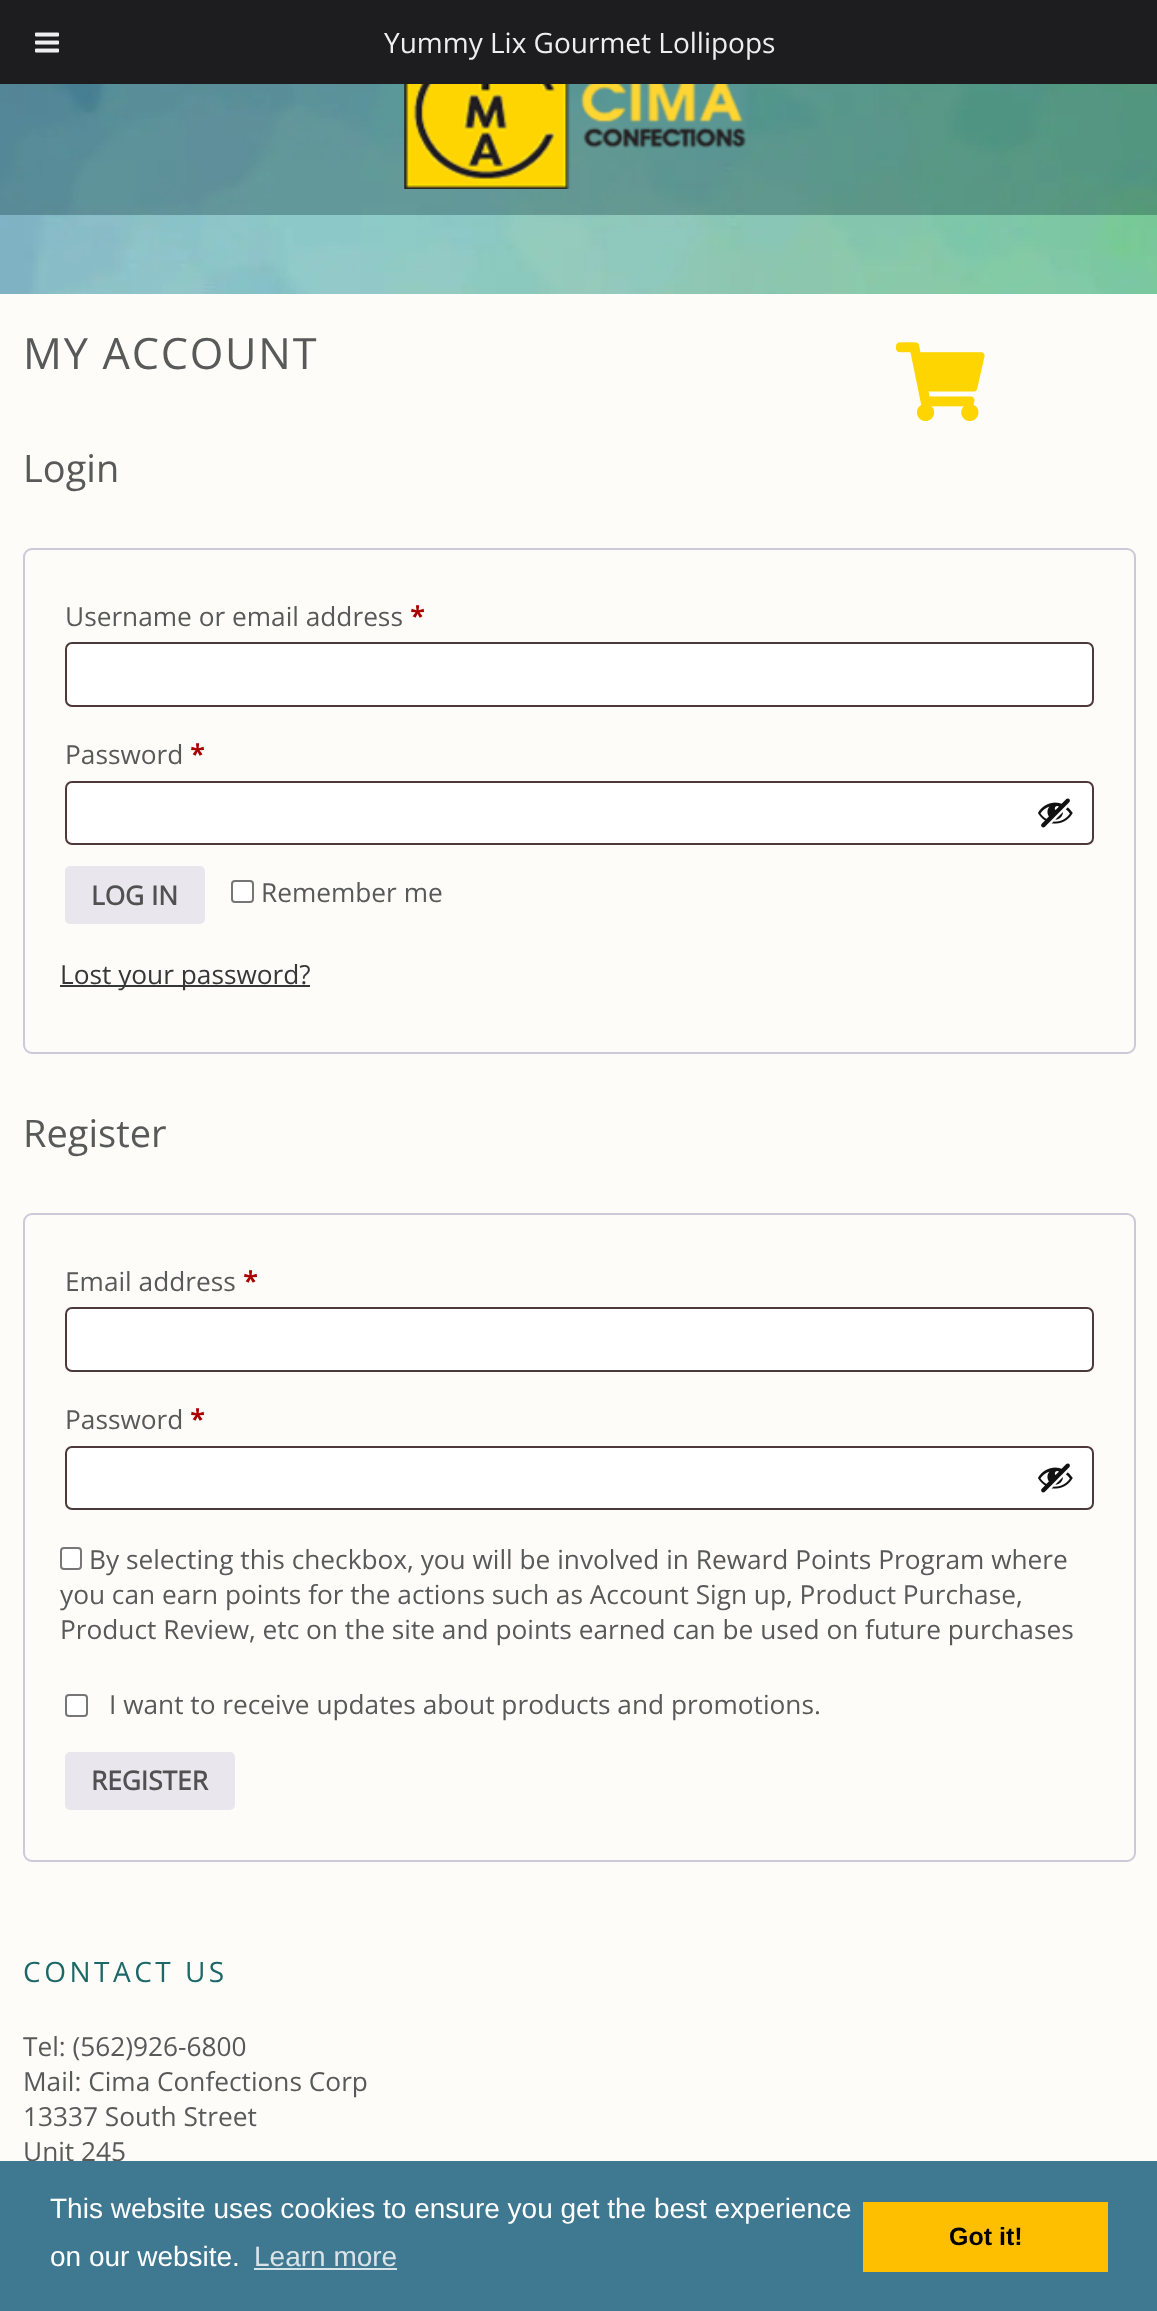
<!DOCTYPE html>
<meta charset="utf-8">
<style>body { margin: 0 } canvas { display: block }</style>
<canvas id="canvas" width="1157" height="2311"></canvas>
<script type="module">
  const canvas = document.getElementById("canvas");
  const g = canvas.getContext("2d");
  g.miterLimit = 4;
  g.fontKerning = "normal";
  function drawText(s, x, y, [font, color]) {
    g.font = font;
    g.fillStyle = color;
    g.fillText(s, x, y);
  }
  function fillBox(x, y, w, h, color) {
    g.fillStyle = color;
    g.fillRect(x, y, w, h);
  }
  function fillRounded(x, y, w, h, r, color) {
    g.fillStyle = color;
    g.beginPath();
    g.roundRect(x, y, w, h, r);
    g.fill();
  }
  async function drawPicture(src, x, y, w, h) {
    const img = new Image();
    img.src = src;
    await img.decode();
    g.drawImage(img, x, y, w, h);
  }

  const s1 = ["28px Open Sans", "#EEEEEE"];
  const s2 = ["43.25px Open Sans", "#585A59"];
  const s3 = ["38px Open Sans", "#585A59"];
  const s4 = ["26.25px Open Sans", "#585A59"];
  const s5 = ["bold 26.25px Open Sans", "#AA0000"];
  const s6 = ["bold 26.25px Open Sans", "#515151"];
  const s7 = ["26.25px Open Sans", "#363837"];
  const s8 = ["28px Open Sans", "#1C6868"];
  const s9 = ["28px Liberation Sans", "#FFFFFF"];
  const s10 = ["28px Liberation Sans", "#D9E4E9"];
  const s11 = ["bold 25px Liberation Sans", "#000000"];

  fillBox(0, 0, 1157, 2311, "#FDFCF8");
  fillBox(0, 0, 1157, 84, "#1D1D20");
  await drawPicture("pic1.png", 35, 32, 24, 21);
  drawText("Yummy Lix Gourmet Lollipops", 384, 53, s1);
  await drawPicture("pic2.png", 0, 84, 1157, 210);
  fillBox(0, 84, 1157, 131, "rgba(3, 42, 50, 0.3)");
  await drawPicture("pic3.png", 404, 84, 342, 105);
  await drawPicture("pic4.png", 896, 342, 89, 80);
  g.letterSpacing = "1.75px";
  drawText("MY ACCOUNT", 23, 369, s2);
  g.letterSpacing = "0px";
  drawText("Login", 23, 482, s3);
  g.beginPath();
  g.roundRect(24, 549, 1111, 504, 8);
  g.strokeStyle = "#CFC8D8";
  g.lineWidth = 2;
  g.stroke();
  drawText("Username or email address", 65, 626, s4);
  drawText("*", 410, 626, s5);
  fillRounded(65, 642, 1029, 65, 7, "#FFFFFF");
  g.beginPath();
  g.roundRect(66, 643, 1027, 63, 6);
  g.strokeStyle = "rgba(32, 7, 7, 0.8)";
  g.stroke();
  drawText("Password", 65, 764, s4);
  drawText("*", 190, 764, s5);
  fillRounded(65, 781, 1029, 64, 7, "#FFFFFF");
  g.beginPath();
  g.roundRect(66, 782, 1027, 62, 6);
  g.stroke();
  await drawPicture("pic5.png", 1038, 798, 35, 30);
  fillRounded(65, 866, 140, 58, 5, "#E9E6ED");
  drawText("LOG IN", 91, 905, s6);
  g.fillStyle = "#FFFFFF";
  g.beginPath();
  g.roundRect(232, 881, 21, 21, 3);
  g.fill();
  g.strokeStyle = "#767676";
  g.stroke();
  drawText("Remember me", 261, 902, s4);
  fillBox(60, 985, 250, 2, "#363837");
  drawText("Lost your password?", 60, 984, s7);
  drawText("Register", 23, 1147, s3);
  g.beginPath();
  g.roundRect(24, 1214, 1111, 647, 8);
  g.strokeStyle = "#CFC8D8";
  g.stroke();
  drawText("Email address", 65, 1291, s4);
  drawText("*", 243, 1291, s5);
  fillRounded(65, 1307, 1029, 65, 7, "#FFFFFF");
  g.beginPath();
  g.roundRect(66, 1308, 1027, 63, 6);
  g.strokeStyle = "rgba(32, 7, 7, 0.8)";
  g.stroke();
  drawText("Password", 65, 1429, s4);
  drawText("*", 190, 1429, s5);
  fillRounded(65, 1446, 1029, 64, 7, "#FFFFFF");
  g.beginPath();
  g.roundRect(66, 1447, 1027, 62, 6);
  g.stroke();
  await drawPicture("pic5.png", 1038, 1463, 35, 30);
  g.beginPath();
  g.roundRect(61, 1548, 20, 21, 3);
  g.fill();
  g.strokeStyle = "#767676";
  g.stroke();
  drawText("By selecting this checkbox, you will be involved in Reward Points Program where", 89, 1569, s4);
  drawText("you can earn points for the actions such as Account Sign up, Product Purchase,", 60, 1604, s4);
  drawText("Product Review, etc on the site and points earned can be used on future purchases", 60, 1639, s4);
  g.fillStyle = "#FFFFFF";
  g.beginPath();
  g.roundRect(66, 1695, 21, 21, 3);
  g.fill();
  g.stroke();
  drawText("I want to receive updates about products and promotions.", 109, 1714, s4);
  fillRounded(65, 1752, 170, 58, 5, "#E9E6ED");
  drawText("REGISTER", 91, 1790, s6);
  g.letterSpacing = "3.5px";
  drawText("CONTACT US", 23, 1982, s8);
  g.letterSpacing = "0px";
  drawText("Tel: (562)926-6800", 23, 2056, s4);
  drawText("Mail: Cima Confections Corp", 23, 2091, s4);
  drawText("13337 South Street", 23, 2126, s4);
  drawText("Unit 245", 23, 2161, s4);
  fillBox(0, 2161, 1157, 150, "#3F7891");
  drawText("This website uses cookies to ensure you get the best experience", 50, 2218, s9);
  drawText("on our website.", 50, 2266, s9);
  drawText("Learn more", 254, 2266, s10);
  fillBox(254, 2268, 143, 2, "#D9E4E9");
  fillBox(863, 2202, 245, 70, "#FEBF01");
  drawText("Got it!", 949, 2245, s11);
</script>
